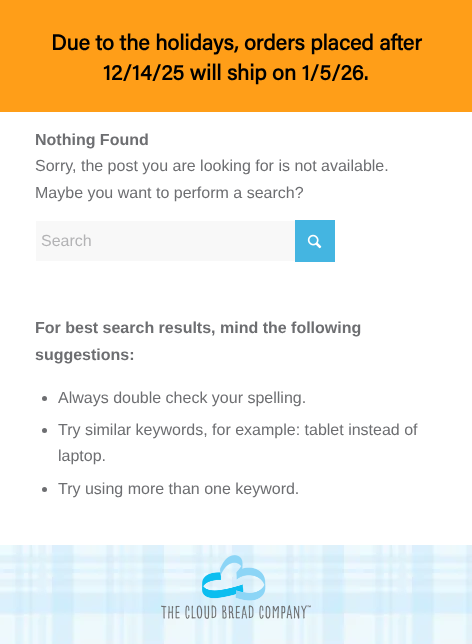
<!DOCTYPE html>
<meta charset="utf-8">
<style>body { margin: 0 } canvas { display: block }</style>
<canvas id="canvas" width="472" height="644"></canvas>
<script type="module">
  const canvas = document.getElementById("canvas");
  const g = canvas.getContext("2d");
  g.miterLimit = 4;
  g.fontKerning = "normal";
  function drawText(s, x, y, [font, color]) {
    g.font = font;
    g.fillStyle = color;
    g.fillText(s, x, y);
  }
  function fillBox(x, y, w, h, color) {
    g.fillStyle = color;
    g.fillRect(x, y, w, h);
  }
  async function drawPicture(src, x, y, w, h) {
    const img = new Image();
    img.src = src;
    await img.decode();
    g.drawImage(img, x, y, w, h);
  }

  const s1 = ["bold 21.6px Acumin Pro", "#000000"];
  const s2 = ["bold 16px Liberation Sans", "#6D6E71"];
  const s3 = ["16px Liberation Sans", "#6D6E71"];
  const s4 = ["16px Liberation Sans", "#B3B3B5"];

  fillBox(0, 0, 472, 644, "#FF9E18");
  drawText("Due to the holidays, orders placed after", 51, 50, s1);
  drawText("12/14/25 will ship on 1/5/26.", 103, 80, s1);
  fillBox(0, 112, 472, 433, "#FFFFFF");
  drawText("Nothing Found", 35, 145, s2);
  drawText("Sorry, the post you are looking for is not available.", 35, 171, s3);
  drawText("Maybe you want to perform a search?", 35, 198, s3);
  fillBox(36, 221, 259, 40, "#F8F8F8");
  drawText("Search", 41, 246, s4);
  fillBox(295, 220, 40, 42, "#44B5E1");
  await drawPicture("pic1.png", 307, 234, 15, 15);
  drawText("For best search results, mind the following", 35, 333, s2);
  drawText("suggestions:", 35, 360, s2);
  g.beginPath();
  g.arc(44.5, 398.5, 2.5, 0, Math.PI * 2);
  g.fill();
  drawText("Always double check your spelling.", 58, 403, s3);
  g.beginPath();
  g.arc(44.5, 430.5, 2.5, 0, Math.PI * 2);
  g.fill();
  drawText("Try similar keywords, for example: tablet instead of", 58, 435, s3);
  drawText("laptop.", 58, 461, s3);
  g.beginPath();
  g.arc(44.5, 489.5, 2.5, 0, Math.PI * 2);
  g.fill();
  drawText("Try using more than one keyword.", 58, 494, s3);
  await drawPicture("pic2.png", 0, 545, 472, 99);
  await drawPicture("pic3.png", 161, 555, 150, 64);
</script>
